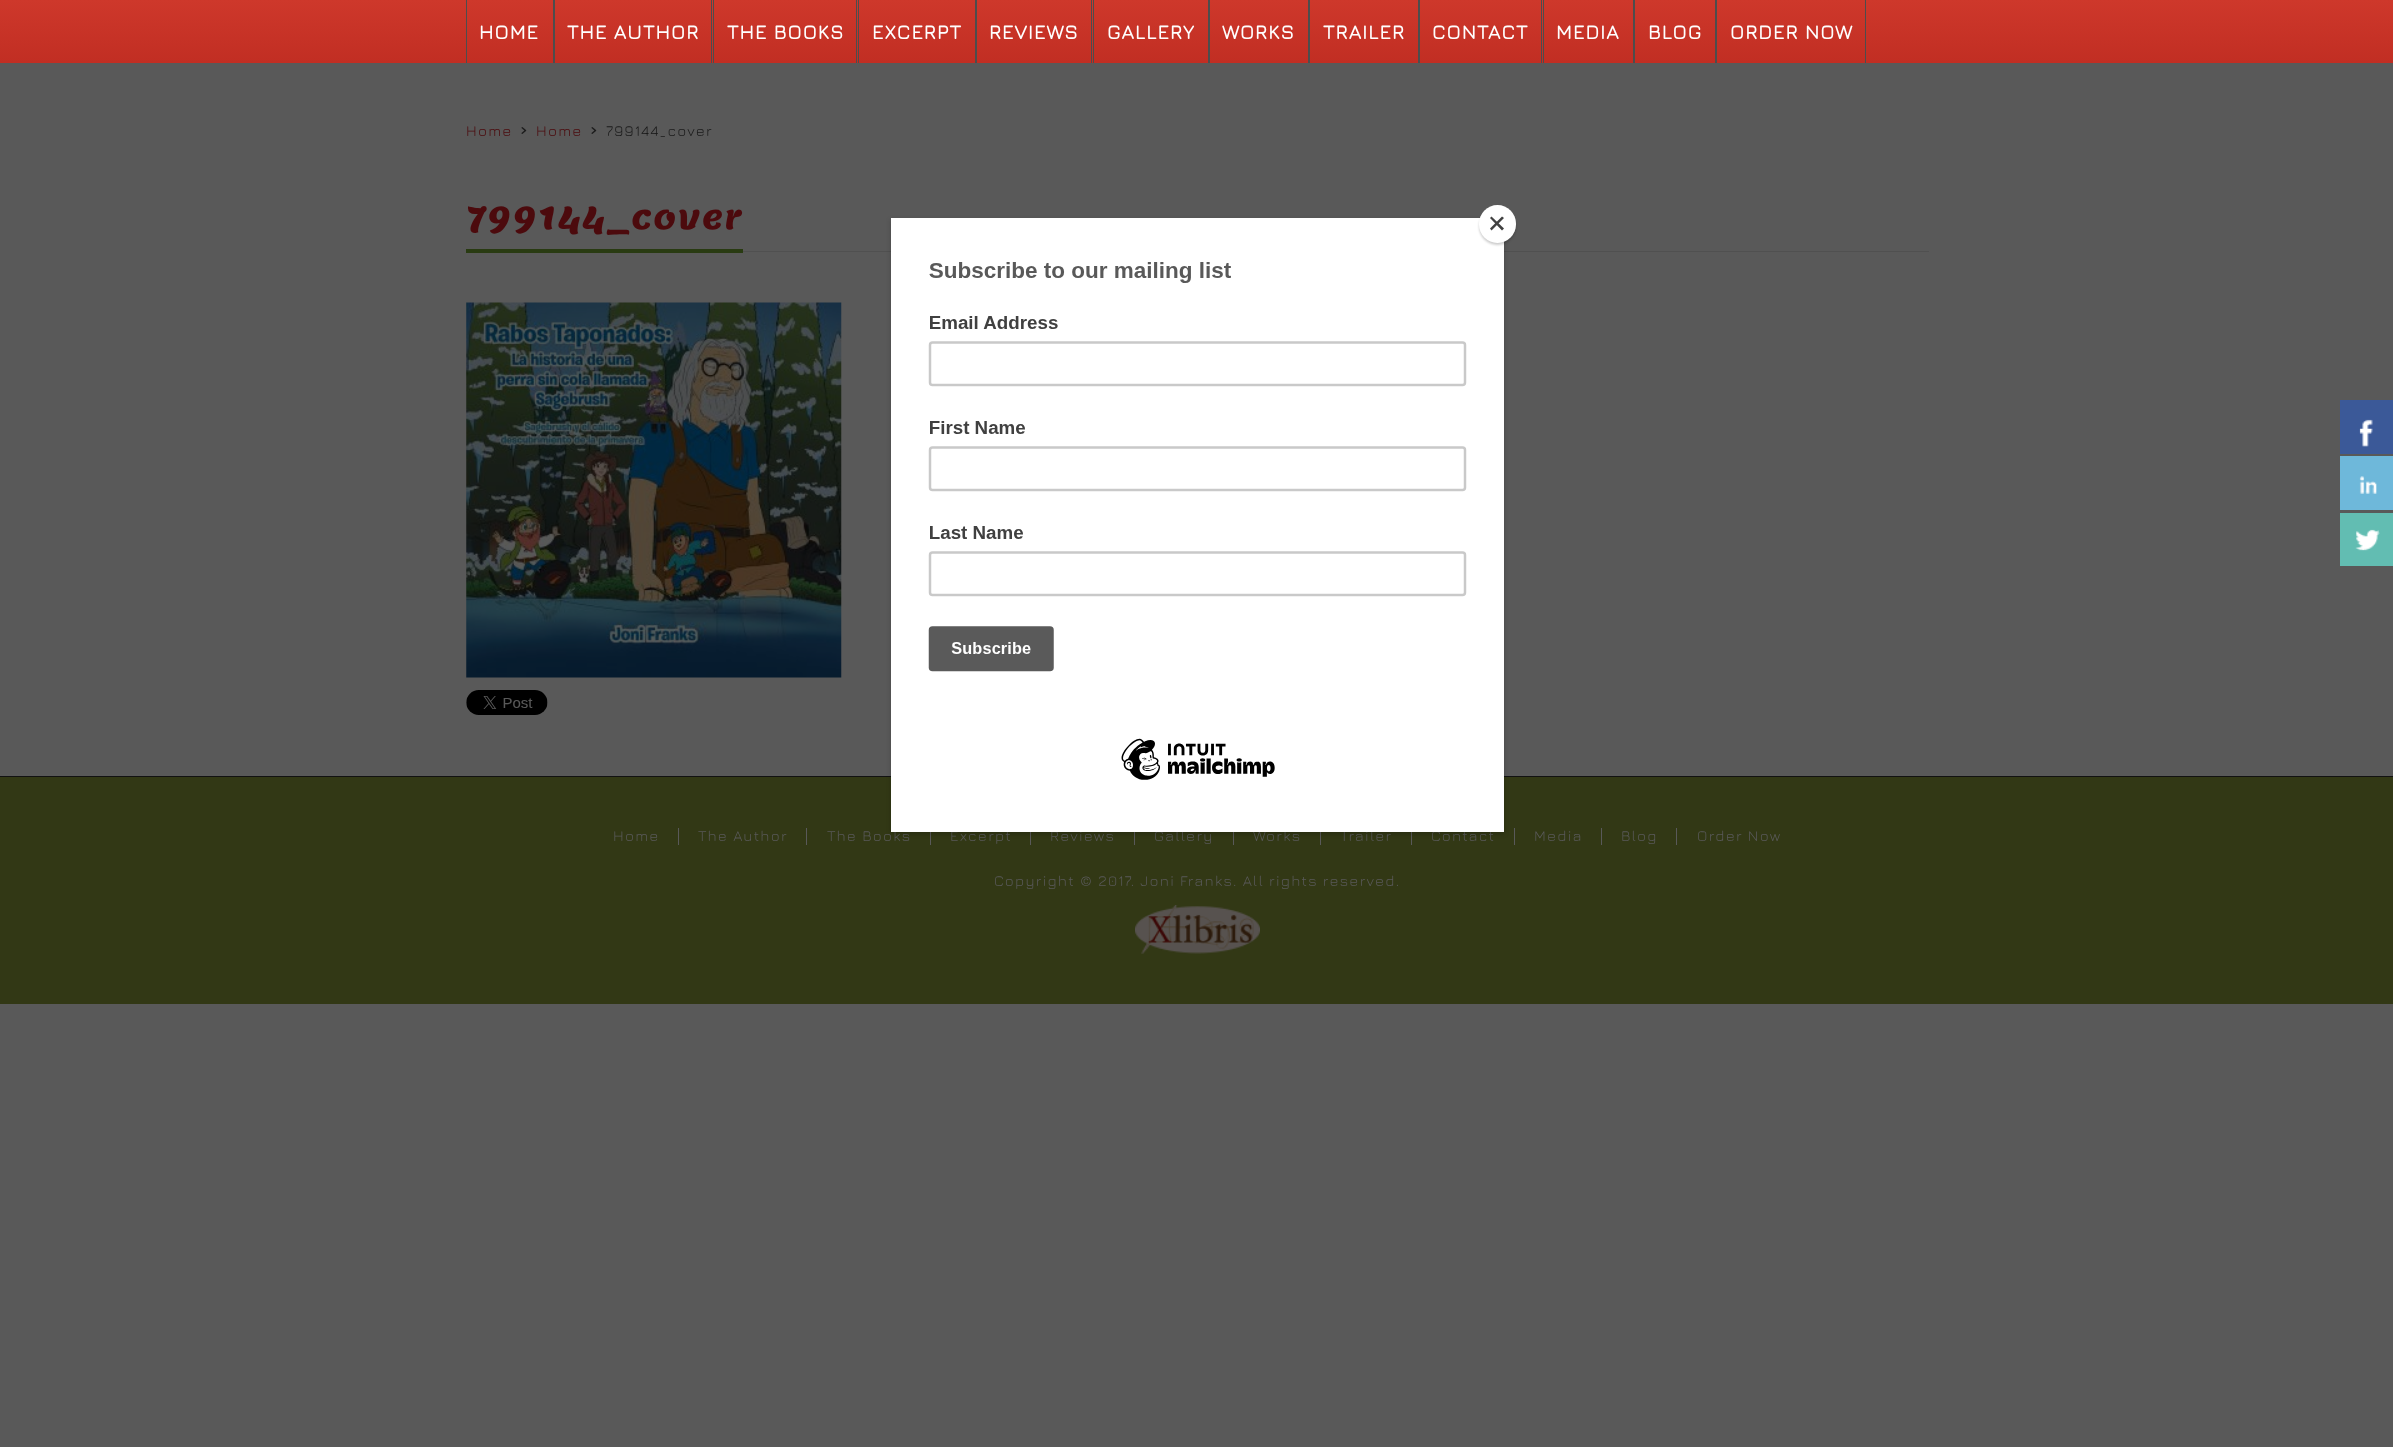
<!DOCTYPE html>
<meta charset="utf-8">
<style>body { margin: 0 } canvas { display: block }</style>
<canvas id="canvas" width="2393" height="1447"></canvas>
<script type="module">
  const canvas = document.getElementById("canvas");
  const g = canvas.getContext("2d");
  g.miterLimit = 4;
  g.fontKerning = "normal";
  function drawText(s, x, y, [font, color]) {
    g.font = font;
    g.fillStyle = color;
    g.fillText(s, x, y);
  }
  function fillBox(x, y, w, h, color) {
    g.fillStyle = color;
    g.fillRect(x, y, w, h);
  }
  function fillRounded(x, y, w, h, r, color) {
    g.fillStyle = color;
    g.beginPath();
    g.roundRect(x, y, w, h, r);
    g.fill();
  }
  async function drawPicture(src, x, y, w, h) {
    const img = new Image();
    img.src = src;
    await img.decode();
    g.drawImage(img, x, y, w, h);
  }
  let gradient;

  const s1 = ["bold 20px Jura", "#FFFFFF"];
  const s2 = ["300 15px Jura", "#4C0A0D"];
  const s3 = ["bold 18px Jura", "#1B1B1B"];
  const s4 = ["300 15px Jura", "#1B1B1B"];
  const s5 = ["32.5px Lemon", "#4C0A0D"];
  const s6 = ["300 15px Jura", "#595959"];

  fillBox(0, 0, 2393, 1447, "#595959");
  gradient = g.createLinearGradient(1197, 0, 1197, 63);
  gradient.addColorStop(0, "#CE382B");
  gradient.addColorStop(1, "#C12E23");
  g.fillStyle = gradient;
  g.fillRect(0, 0, 2393, 63);
  fillBox(553, 0, 2, 63, "#4D4D4D");
  fillBox(466, 0, 1, 63, "#4D4D4D");
  g.letterSpacing = "1.25px";
  drawText("HOME", 479, 39, s1);
  fillBox(711, 0, 1, 63, "#4D4D4D");
  drawText("THE AUTHOR", 567, 39, s1);
  fillBox(856, 0, 1, 63, "#4D4D4D");
  fillBox(713, 0, 1, 63, "#4D4D4D");
  drawText("THE BOOKS", 727, 39, s1);
  fillBox(975, 0, 2, 63, "#4D4D4D");
  fillBox(858, 0, 1, 63, "#4D4D4D");
  drawText("EXCERPT", 872, 39, s1);
  fillBox(1091, 0, 1, 63, "#4D4D4D");
  drawText("REVIEWS", 989, 39, s1);
  fillBox(1208, 0, 2, 63, "#4D4D4D");
  fillBox(1093, 0, 1, 63, "#4D4D4D");
  drawText("GALLERY", 1107, 39, s1);
  fillBox(1308, 0, 2, 63, "#4D4D4D");
  drawText("WORKS", 1222, 39, s1);
  fillBox(1418, 0, 2, 63, "#4D4D4D");
  drawText("TRAILER", 1323, 39, s1);
  fillBox(1541, 0, 1, 63, "#4D4D4D");
  drawText("CONTACT", 1432, 39, s1);
  fillBox(1633, 0, 2, 63, "#4D4D4D");
  fillBox(1543, 0, 1, 63, "#4D4D4D");
  drawText("MEDIA", 1556, 39, s1);
  fillBox(1715, 0, 2, 63, "#4D4D4D");
  drawText("BLOG", 1648, 39, s1);
  fillBox(1865, 0, 1, 63, "#4D4D4D");
  drawText("ORDER NOW", 1730, 39, s1);
  drawText("Home", 466, 136, s2);
  drawText("›", 520, 136, s3);
  drawText("Home", 536, 136, s2);
  drawText("›", 590, 136, s3);
  drawText("799144_cover", 606, 136, s4);
  fillBox(743, 251, 1186, 1, "#505050");
  fillBox(466, 249, 277, 4, "#293B12");
  drawText("799144_cover", 466, 229, s5);
  await drawPicture("pic1.png", 466, 302, 376, 376);
  await drawPicture("pic2.png", 466, 690, 82, 25);
  fillBox(0, 777, 2393, 227, "#323815");
  fillBox(0, 776, 2393, 1, "#121212");
  fillBox(678, 828, 1, 17, "#595959");
  drawText("Home", 613, 841, s6);
  fillBox(806, 828, 1, 17, "#595959");
  drawText("The Author", 698, 841, s6);
  fillBox(930, 828, 1, 17, "#595959");
  drawText("The Books", 827, 841, s6);
  fillBox(1030, 828, 1, 17, "#595959");
  drawText("Excerpt", 950, 841, s6);
  fillBox(1134, 828, 1, 17, "#595959");
  drawText("Reviews", 1050, 841, s6);
  fillBox(1233, 828, 1, 17, "#595959");
  drawText("Gallery", 1154, 841, s6);
  fillBox(1320, 828, 1, 17, "#595959");
  drawText("Works", 1253, 841, s6);
  fillBox(1411, 828, 1, 17, "#595959");
  drawText("Trailer", 1340, 841, s6);
  fillBox(1514, 828, 1, 17, "#595959");
  drawText("Contact", 1431, 841, s6);
  fillBox(1601, 828, 1, 17, "#595959");
  drawText("Media", 1534, 841, s6);
  fillBox(1676, 828, 1, 17, "#595959");
  drawText("Blog", 1621, 841, s6);
  drawText("Order Now", 1697, 841, s6);
  drawText("Copyright © 2017. Joni Franks. All rights reserved.", 994, 886, s6);
  await drawPicture("pic3.png", 1135, 905, 125, 49);
  g.fillStyle = "rgba(0, 0, 0, 0.2)";
  g.filter = "blur(2.5px)";
  g.beginPath();
  g.rect(891, 220, 613, 614);
  g.fill();
  g.filter = "none";
  await drawPicture("pic4.png", 891, 218, 613, 614);
  g.filter = "blur(1px)";
  g.beginPath();
  g.roundRect(1479, 208, 37, 37, 18.5);
  g.fill();
  g.filter = "none";
  fillRounded(1479, 205, 37, 38, 18.5, "#FFFFFF");
  g.fillStyle = "#414141";
  g.beginPath();
  g.moveTo(1502, 216.5);
  g.lineTo(1504, 218);
  g.lineTo(1491.5, 230.5);
  g.lineTo(1490, 228.5);
  g.closePath();
  g.fill();
  g.beginPath();
  g.moveTo(1490, 218);
  g.lineTo(1491.5, 216.5);
  g.lineTo(1504, 228.5);
  g.lineTo(1502, 230.5);
  g.closePath();
  g.fill();
  fillBox(2340, 400, 53, 54, "#3B5998");
  await drawPicture("pic5.png", 2359, 419, 14, 28);
  fillBox(2340, 456, 53, 54, "#6EB8DA");
  await drawPicture("pic6.png", 2359, 476, 18, 18);
  fillBox(2340, 513, 53, 53, "#62BDB2");
  await drawPicture("pic7.png", 2355, 529, 25, 22);
</script>
